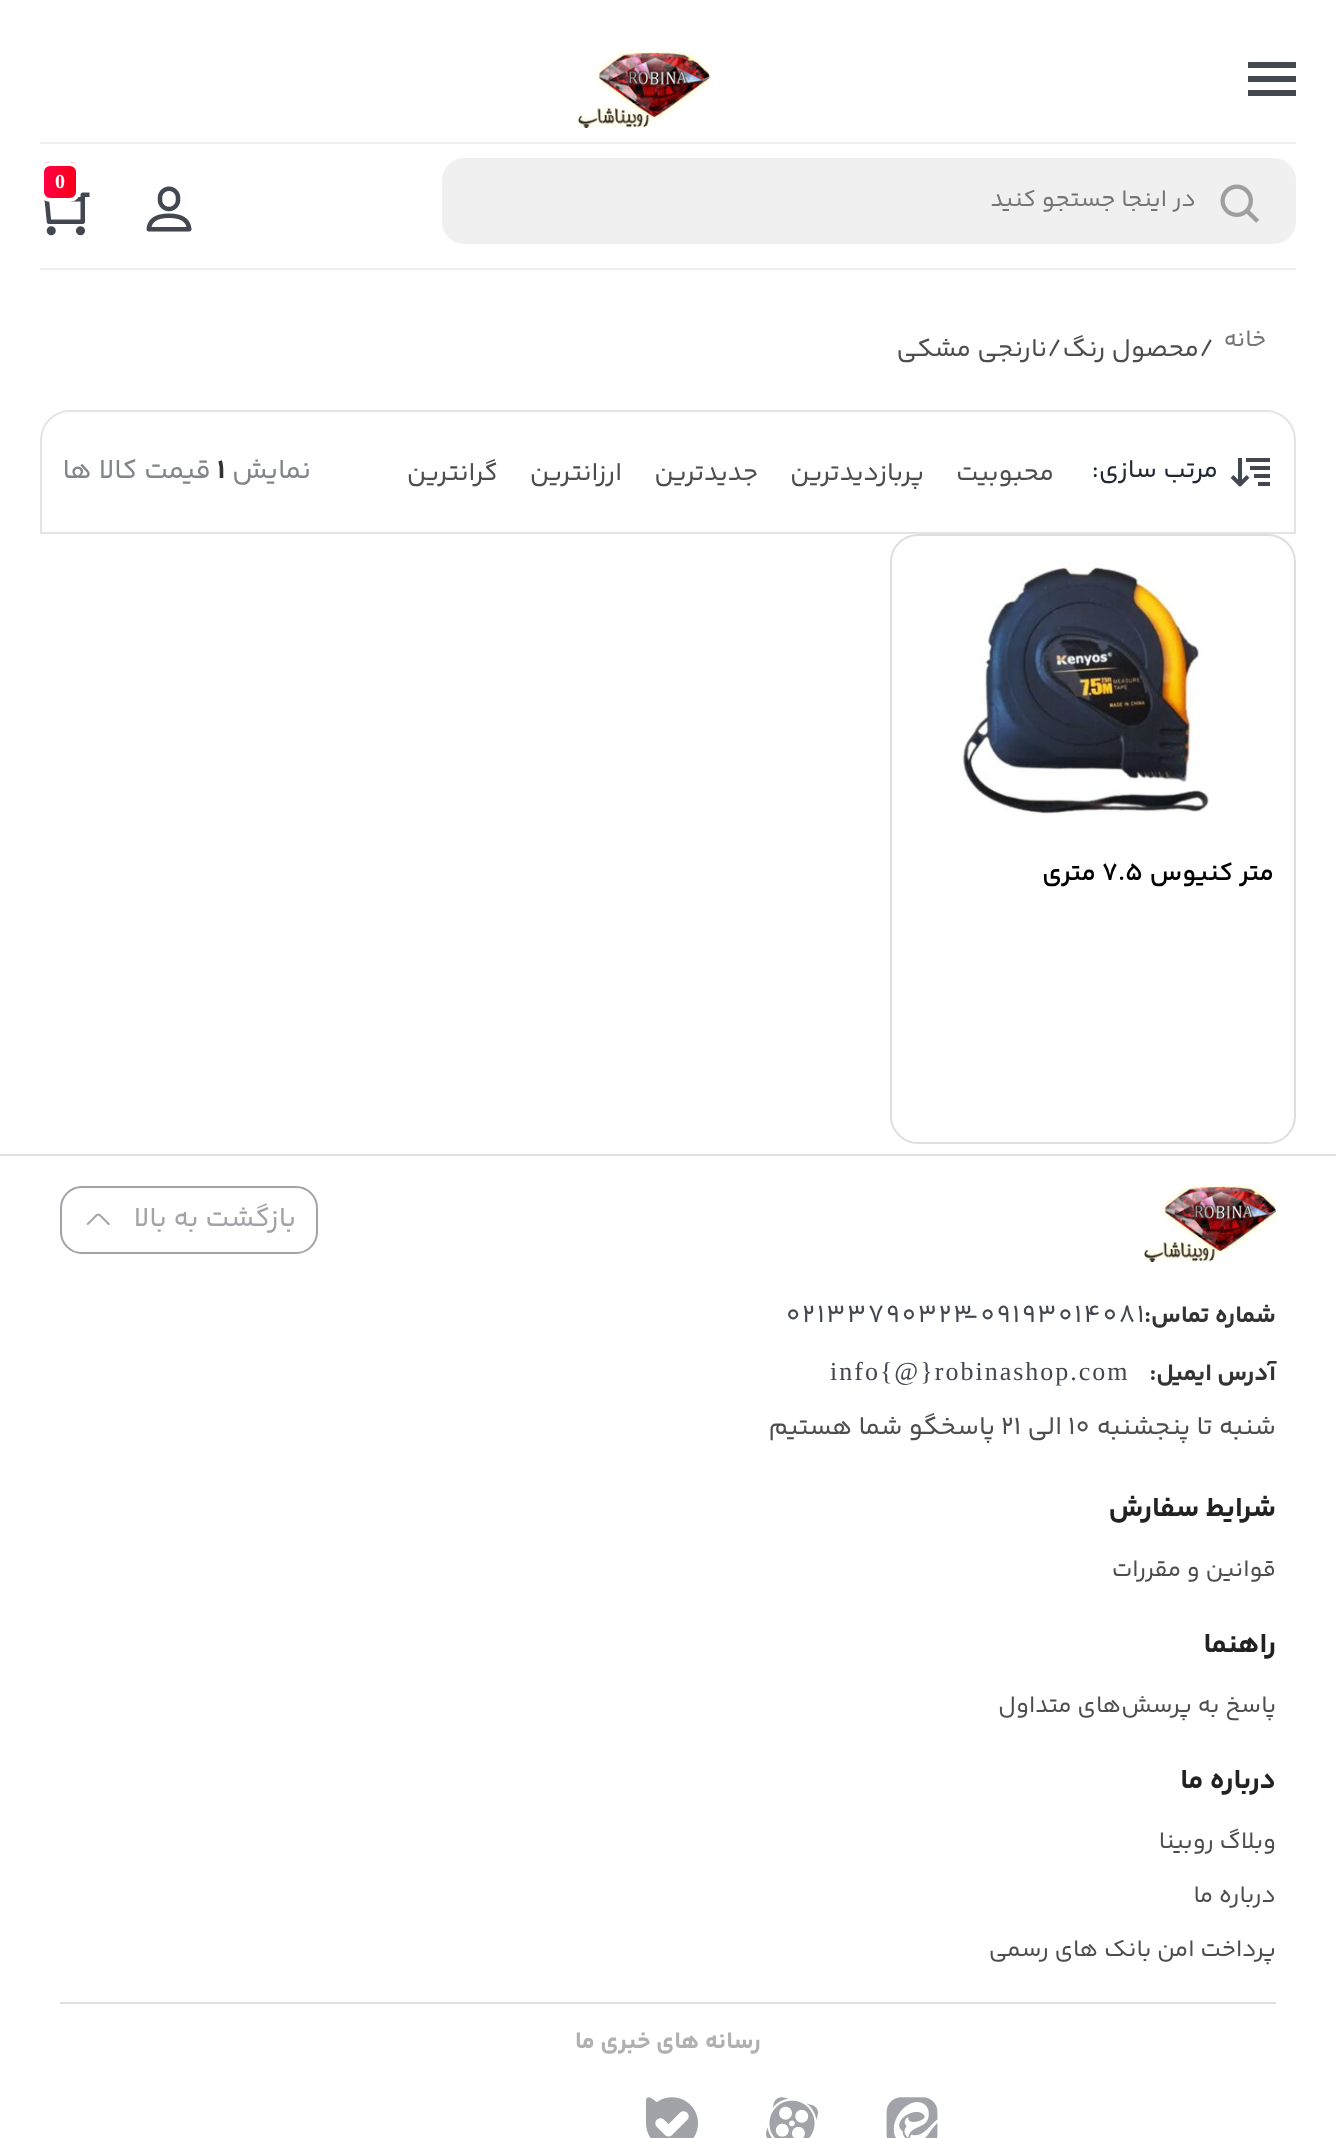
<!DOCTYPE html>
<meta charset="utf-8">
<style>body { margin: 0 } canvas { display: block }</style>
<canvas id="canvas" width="1336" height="2138"></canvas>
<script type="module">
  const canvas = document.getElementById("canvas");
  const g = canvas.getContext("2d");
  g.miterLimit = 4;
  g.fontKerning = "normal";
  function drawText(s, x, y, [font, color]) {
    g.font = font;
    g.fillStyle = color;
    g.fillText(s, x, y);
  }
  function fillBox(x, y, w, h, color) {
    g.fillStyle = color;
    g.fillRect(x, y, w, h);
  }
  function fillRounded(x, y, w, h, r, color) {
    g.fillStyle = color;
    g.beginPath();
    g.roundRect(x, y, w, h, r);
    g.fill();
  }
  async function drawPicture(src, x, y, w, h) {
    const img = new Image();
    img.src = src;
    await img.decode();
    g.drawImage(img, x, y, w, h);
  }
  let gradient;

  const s1 = ["bold 20px Liberation Serif", "#FFFFFF"];
  const s2 = ["24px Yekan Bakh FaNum", "#757575"];
  const s3 = ["26px Yekan Bakh FaNum", "#4D4D4D"];
  const s4 = ["26px Yekan Bakh FaNum", "#232933"];
  const s5 = ["28px Yekan Bakh FaNum", "#81858B"];
  const s6 = ["bold 28px Yekan Bakh FaNum", "#333333"];
  const s7 = ["600 26px Yekan Bakh FaNum", "#000000"];
  const s8 = ["28px Yekan Bakh FaNum", "#A1A3A8"];
  const s9 = ["bold 24px Yekan Bakh FaNum", "#333333"];
  const s10 = ["26px Yekan Bakh FaNum", "#424750"];
  const s11 = ["26px Liberation Serif", "#424750"];
  const s12 = ["bold 28px Yekan Bakh FaNum", "#222222"];
  const s13 = ["24px Yekan Bakh FaNum", "#4D4D4D"];
  const s14 = ["bold 24px Yekan Bakh FaNum", "#B0B0B0"];

  fillBox(0, 0, 1336, 2138, "#FFFFFF");
  fillBox(40, 142, 1256, 2, "#EEEEEE");
  fillBox(1248, 62, 48, 6, "#424750");
  fillBox(1248, 76, 48, 6, "#424750");
  fillBox(1248, 90, 48, 6, "#424750");
  await drawPicture("pic1.png", 578, 52, 132, 76);
  fillBox(40, 268, 1256, 2, "#EEEEEE");
  await drawPicture("pic2.png", 44, 192, 46, 44);
  g.save();
  g.beginPath();
  g.roundRect(40, 162, 40, 40, 10);
  g.clip();
  gradient = g.createLinearGradient(44, 182, 76, 182);
  gradient.addColorStop(0, "#FF0044");
  gradient.addColorStop(1, "#F90018");
  g.fillStyle = gradient;
  g.fillRect(44, 162, 32, 40);
  g.restore();
  g.beginPath();
  g.roundRect(42, 164, 36, 36, 8);
  g.strokeStyle = "#FFFFFF";
  g.lineWidth = 4;
  g.stroke();
  drawText("0", 55, 188, s1);
  await drawPicture("pic3.png", 146, 186, 46, 46);
  fillRounded(442, 158, 854, 86, 22, "#F0F0F1");
  await drawPicture("pic4.png", 1220, 184, 39, 39);
  g.direction = "rtl";
  drawText("در اینجا جستجو کنید", 1196, 206, s2);
  drawText("خانه", 1266, 346, s2);
  g.direction = "ltr";
  drawText("/", 1199, 356, s3);
  g.direction = "rtl";
  drawText("محصول رنگ", 1199, 356, s3);
  g.direction = "ltr";
  drawText("/", 1047, 356, s3);
  g.direction = "rtl";
  drawText("نارنجی مشکی", 1047, 356, s3);
  g.beginPath();
  g.roundRect(41, 411, 1254, 122, [29, 29, 0, 0]);
  g.strokeStyle = "#E4E4E4";
  g.lineWidth = 2;
  g.stroke();
  await drawPicture("pic5.png", 1230, 458, 40, 29);
  drawText("مرتب سازی:", 1218, 477, s4);
  drawText("محبوبیت", 1054, 480, s3);
  drawText("پربازدیدترین", 924, 480, s3);
  drawText("جدیدترین", 758, 480, s3);
  drawText("ارزانترین", 622, 480, s3);
  drawText("گرانترین", 498, 480, s3);
  drawText("نمایش", 311, 478, s5);
  g.direction = "ltr";
  drawText("1", 217, 478, s6);
  g.direction = "rtl";
  drawText("قیمت کالا ها", 211, 478, s5);
  g.beginPath();
  g.roundRect(891, 535, 404, 608, 27);
  g.strokeStyle = "#DEDEE1";
  g.stroke();
  await drawPicture("pic6.png", 962, 561, 247, 253);
  drawText("متر کنیوس", 1274, 880, s7);
  g.direction = "ltr";
  drawText("7.5", 1102, 880, s7);
  g.direction = "rtl";
  drawText("متری", 1096, 880, s7);
  fillBox(0, 1154, 1336, 2, "#E0E0E2");
  await drawPicture("pic7.png", 1144, 1186, 132, 76);
  g.beginPath();
  g.roundRect(61, 1187, 256, 66, 21);
  g.strokeStyle = "#A1A3A8";
  g.stroke();
  drawText("بازگشت به بالا", 296, 1226, s8);
  await drawPicture("pic8.png", 86, 1213, 24, 12);
  drawText("شماره تماس:", 1276, 1322, s9);
  g.letterSpacing = "2px";
  g.direction = "ltr";
  drawText("02133790323", 786, 1322, s10);
  drawText("-09193014081", 963, 1322, s10);
  g.letterSpacing = "0px";
  g.direction = "rtl";
  drawText("آدرس ایمیل:", 1276, 1380, s9);
  g.letterSpacing = "2px";
  g.direction = "ltr";
  drawText("info{@}robinashop.com", 830, 1380, s11);
  g.letterSpacing = "0px";
  g.direction = "rtl";
  drawText("شنبه تا پنجشنبه", 1276, 1434, s3);
  g.direction = "ltr";
  drawText("10", 1068, 1434, s3);
  g.direction = "rtl";
  drawText("الی", 1062, 1434, s3);
  g.direction = "ltr";
  drawText("21", 1001, 1434, s3);
  g.direction = "rtl";
  drawText("پاسخگو شما هستیم", 995, 1434, s3);
  drawText("شرایط سفارش", 1276, 1516, s12);
  drawText("قوانین و مقررات", 1276, 1576, s13);
  drawText("راهنما", 1276, 1652, s12);
  drawText("پاسخ به پرسش‌های متداول", 1276, 1712, s13);
  drawText("درباره ما", 1276, 1788, s12);
  drawText("وبلاگ روبینا", 1276, 1848, s13);
  drawText("درباره ما", 1276, 1902, s13);
  drawText("پرداخت امن بانک های رسمی", 1276, 1956, s13);
  fillBox(60, 2002, 1216, 2, "#E0E0E2");
  drawText("رسانه های خبری ما", 761, 2048, s14);
  await drawPicture("pic9.png", 886, 2097, 52, 41);
  await drawPicture("pic10.png", 766, 2097, 52, 41);
  await drawPicture("pic11.png", 646, 2097, 52, 41);
</script>
